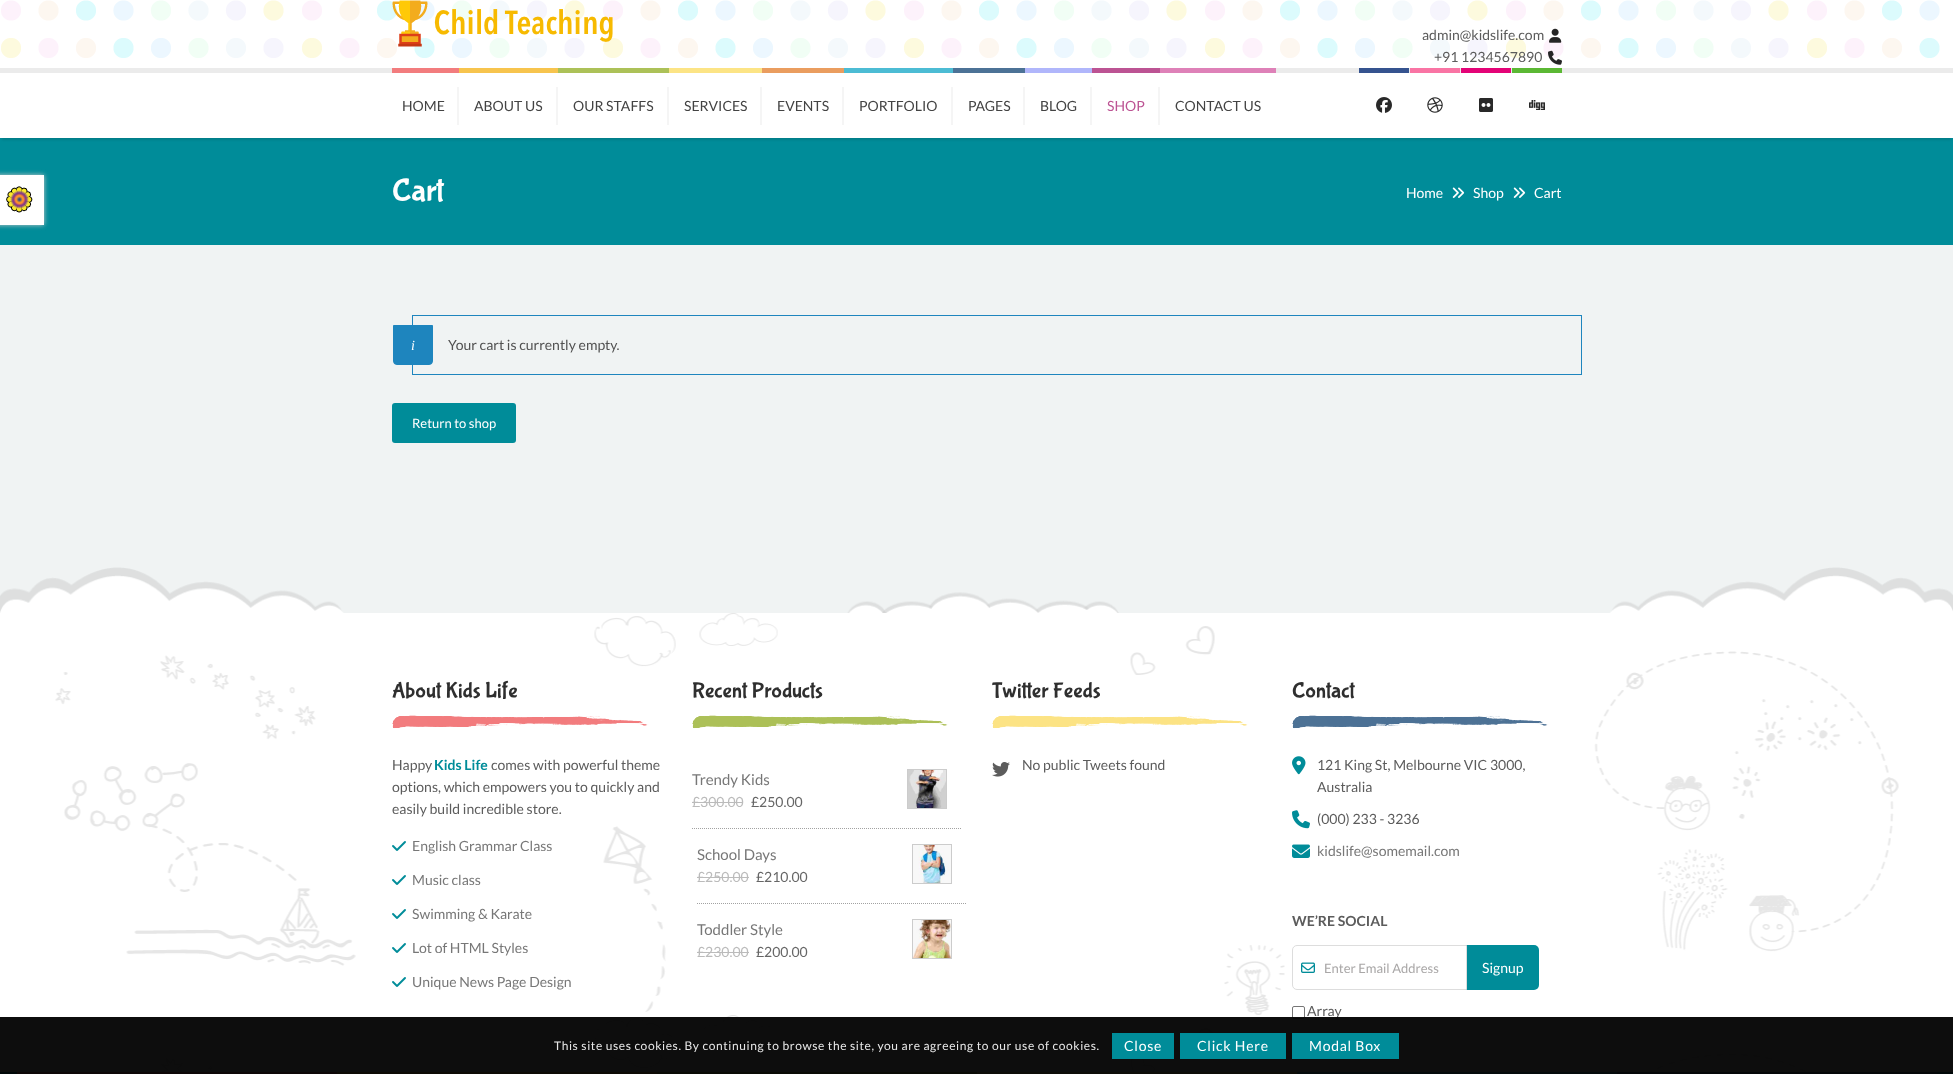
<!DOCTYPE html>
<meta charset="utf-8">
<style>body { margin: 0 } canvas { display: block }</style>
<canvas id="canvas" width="1953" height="1074"></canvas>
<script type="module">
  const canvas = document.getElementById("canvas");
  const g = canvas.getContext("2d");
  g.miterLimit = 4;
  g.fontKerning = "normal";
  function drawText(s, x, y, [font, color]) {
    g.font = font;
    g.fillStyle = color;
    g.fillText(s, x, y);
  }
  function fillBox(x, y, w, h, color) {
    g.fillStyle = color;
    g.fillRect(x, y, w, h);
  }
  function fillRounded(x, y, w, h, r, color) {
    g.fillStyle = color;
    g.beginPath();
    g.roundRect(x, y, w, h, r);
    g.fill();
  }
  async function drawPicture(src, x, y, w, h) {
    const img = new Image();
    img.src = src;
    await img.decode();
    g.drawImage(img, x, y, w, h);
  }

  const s1 = ["14px Lato", "#5C5C5C"];
  const s2 = ["14px Lato", "#434343"];
  const s3 = ["14px Lato", "#BC5393"];
  const s4 = ["32px Bubblegum Sans", "#FFFFFF"];
  const s5 = ["14px Lato", "#FFFFFF"];
  const s6 = ["italic 14px Liberation Serif", "#FFFFFF"];
  const s7 = ["14px Lato", "#515151"];
  const s8 = ["13px Lato", "#FFFFFF"];
  const s9 = ["22px Bubblegum Sans", "#2F2F2F"];
  const s10 = ["bold 14px Lato", "#008C99"];
  const s11 = ["14px Lato", "#777777"];
  const s12 = ["15px Lato", "#777777"];
  const s13 = ["14px Lato", "#BBBBBB"];
  const s14 = ["14px Lato", "#666666"];
  const s15 = ["bold 14px Lato", "#5C5C5C"];
  const s16 = ["13px Lato", "#A9A7A7"];
  const s17 = ["12px Lato", "#E7E7E7"];

  fillBox(0, 0, 1953, 1074, "#F0F3F3");
  fillBox(0, 138, 1953, 107, "#008C99");
  g.fillStyle = "#CCCCCC";
  g.filter = "blur(2.5px)";
  g.beginPath();
  g.rect(-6, 175, 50, 50);
  g.fill();
  g.filter = "none";
  fillBox(0, 175, 44, 50, "#FFFFFF");
  await drawPicture("pic1.png", 6, 186, 27, 27);
  fillBox(0, 0, 1953, 68, "#FFFFFF");
  await drawPicture("pic2.png", 1, 0, 1939, 58);
  await drawPicture("pic3.png", 392, 0, 221, 47);
  drawText("admin@kidslife.com", 1422, 40, s1);
  await drawPicture("pic4.png", 1549, 28, 13, 15);
  drawText("+91 1234567890", 1434, 62, s1);
  await drawPicture("pic5.png", 1548, 50, 14, 15);
  g.fillStyle = "rgba(0, 0, 0, 0.1)";
  g.filter = "blur(1px)";
  g.beginPath();
  g.rect(2, 74, 1949, 66);
  g.fill();
  g.filter = "none";
  fillBox(0, 73, 1953, 65, "#FFFFFF");
  fillBox(0, 68, 1953, 5, "#EBEBEB");
  fillBox(392, 68, 67, 5, "#F27C7E");
  drawText("HOME", 402, 111, s2);
  fillBox(457, 87, 2, 38, "#F5F5F5");
  fillBox(459, 68, 99, 5, "#F7C44E");
  drawText("ABOUT US", 474, 111, s2);
  fillBox(556, 87, 2, 38, "#F5F5F5");
  fillBox(558, 68, 111, 5, "#ACC158");
  drawText("OUR STAFFS", 573, 111, s2);
  fillBox(667, 87, 2, 38, "#F5F5F5");
  fillBox(669, 68, 93, 5, "#FCE485");
  drawText("SERVICES", 684, 111, s2);
  fillBox(760, 87, 2, 38, "#F5F5F5");
  fillBox(762, 68, 82, 5, "#EA9D5F");
  drawText("EVENTS", 777, 111, s2);
  fillBox(842, 87, 2, 38, "#F5F5F5");
  fillBox(844, 68, 109, 5, "#4CBCD4");
  drawText("PORTFOLIO", 859, 111, s2);
  fillBox(951, 87, 2, 38, "#F5F5F5");
  fillBox(953, 68, 72, 5, "#4C7296");
  drawText("PAGES", 968, 111, s2);
  fillBox(1023, 87, 2, 38, "#F5F5F5");
  fillBox(1025, 68, 67, 5, "#B0B6FB");
  drawText("BLOG", 1040, 111, s2);
  fillBox(1090, 87, 2, 38, "#F5F5F5");
  fillBox(1092, 68, 68, 5, "#BC5393");
  drawText("SHOP", 1107, 111, s3);
  fillBox(1158, 87, 2, 38, "#F5F5F5");
  fillBox(1160, 68, 116, 5, "#DE81B8");
  drawText("CONTACT US", 1175, 111, s2);
  fillBox(1359, 68, 50, 5, "#35538F");
  await drawPicture("pic6.png", 1376, 97, 16, 16);
  fillBox(1410, 68, 50, 5, "#F974A4");
  await drawPicture("pic7.png", 1427, 97, 16, 16);
  fillBox(1461, 68, 50, 5, "#E30377");
  await drawPicture("pic8.png", 1479, 98, 14, 14);
  fillBox(1512, 68, 50, 5, "#5BB834");
  await drawPicture("pic9.png", 1529, 100, 16, 10);
  drawText("Cart", 392, 200, s4);
  drawText("Home", 1406, 198, s5);
  await drawPicture("pic10.png", 1452, 187, 13, 11);
  drawText("Shop", 1473, 198, s5);
  await drawPicture("pic10.png", 1513, 187, 13, 11);
  drawText("Cart", 1534, 198, s5);
  g.strokeStyle = "#1E85BE";
  g.strokeRect(412.5, 315.5, 1169, 59);
  g.fillStyle = "#1E85BE";
  g.beginPath();
  g.roundRect(393.5, 325.5, 39, 39, [0, 0, 3.5, 3.5]);
  g.fill();
  g.stroke();
  drawText("i", 411, 350, s6);
  drawText("Your cart is currently empty.", 448, 350, s7);
  fillRounded(392, 403, 124, 40, 3, "#008C99");
  drawText("Return to shop", 412, 428, s8);
  fillBox(0, 613, 1953, 459, "#FFFFFF");
  await drawPicture("pic11.png", 55, 613, 1844, 459);
  await drawPicture("pic12.png", 0, 567, 1953, 46);
  drawText("About Kids Life", 392, 697, s9);
  fillBox(392, 715, 257, 14, "#F27C7E");
  await drawPicture("pic13.png", 392, 715, 270, 14);
  drawText("Happy", 392, 770, s1);
  drawText("Kids Life", 434, 770, s10);
  drawText("comes with powerful theme", 491, 770, s1);
  drawText("options, which empowers you to quickly and", 392, 792, s1);
  drawText("easily build incredible store.", 392, 814, s1);
  await drawPicture("pic14.png", 392, 841, 14, 10);
  drawText("English Grammar Class", 412, 851, s11);
  await drawPicture("pic14.png", 392, 875, 14, 10);
  drawText("Music class", 412, 885, s11);
  await drawPicture("pic14.png", 392, 909, 14, 10);
  drawText("Swimming & Karate", 412, 919, s11);
  await drawPicture("pic14.png", 392, 943, 14, 10);
  drawText("Lot of HTML Styles", 412, 953, s11);
  await drawPicture("pic14.png", 392, 977, 14, 10);
  drawText("Unique News Page Design", 412, 987, s11);
  drawText("Recent Products", 692, 697, s9);
  fillBox(692, 715, 257, 14, "#ACC158");
  await drawPicture("pic15.png", 692, 715, 270, 14);
  g.beginPath();
  g.moveTo(692, 828.5);
  g.lineTo(962, 828.5);
  g.strokeStyle = "#A2A2A2";
  g.setLineDash([1, 1]);
  g.stroke();
  drawText("Trendy Kids", 692, 785, s12);
  g.strokeStyle = "#CCCCCC";
  g.setLineDash([]);
  g.strokeRect(907.5, 769.5, 39, 39);
  await drawPicture("pic16.png", 908, 770, 38, 38);
  drawText("£300.00", 692, 807, s13);
  fillBox(692, 802, 51, 1, "#BBBBBB");
  drawText("£250.00", 751, 807, s14);
  g.beginPath();
  g.moveTo(697, 903.5);
  g.lineTo(967, 903.5);
  g.strokeStyle = "#A2A2A2";
  g.setLineDash([1, 1]);
  g.stroke();
  drawText("School Days", 697, 860, s12);
  g.strokeStyle = "#CCCCCC";
  g.setLineDash([]);
  g.strokeRect(912.5, 844.5, 39, 39);
  await drawPicture("pic17.png", 913, 845, 38, 38);
  drawText("£250.00", 697, 882, s13);
  fillBox(697, 877, 52, 1, "#BBBBBB");
  drawText("£210.00", 756, 882, s14);
  drawText("Toddler Style", 697, 935, s12);
  g.strokeRect(912.5, 919.5, 39, 39);
  await drawPicture("pic18.png", 913, 920, 38, 38);
  drawText("£230.00", 697, 957, s13);
  fillBox(697, 952, 52, 1, "#BBBBBB");
  drawText("£200.00", 756, 957, s14);
  drawText("Twitter Feeds", 992, 697, s9);
  fillBox(992, 715, 257, 14, "#FCE485");
  await drawPicture("pic19.png", 992, 715, 270, 14);
  await drawPicture("pic20.png", 992, 762, 18, 15);
  drawText("No public Tweets found", 1022, 770, s1);
  drawText("Contact", 1292, 697, s9);
  fillBox(1292, 715, 257, 14, "#4C7296");
  await drawPicture("pic21.png", 1292, 715, 270, 14);
  await drawPicture("pic22.png", 1292, 756, 14, 19);
  drawText("121 King St, Melbourne VIC 3000,", 1317, 770, s1);
  drawText("Australia", 1317, 792, s1);
  await drawPicture("pic23.png", 1292, 810, 18, 19);
  drawText("(000) 233 - 3236", 1317, 824, s1);
  await drawPicture("pic24.png", 1292, 844, 18, 14);
  drawText("kidslife@somemail.com", 1317, 856, s11);
  drawText("WE’RE SOCIAL", 1292, 926, s15);
  g.fillStyle = "#008C99";
  g.beginPath();
  g.roundRect(1466, 945, 73, 45, [0, 5, 5, 0]);
  g.fill();
  g.fillStyle = "#FFFFFF";
  g.beginPath();
  g.roundRect(1292.5, 945.5, 174, 44, [4.5, 0, 0, 4.5]);
  g.fill();
  g.strokeStyle = "#DDDDDD";
  g.stroke();
  await drawPicture("pic25.png", 1301, 962, 14, 11);
  drawText("Enter Email Address", 1324, 973, s16);
  drawText("Signup", 1482, 973, s5);
  g.beginPath();
  g.roundRect(1292.5, 1006.5, 12, 12, 1.5);
  g.strokeStyle = "#767676";
  g.stroke();
  drawText("Array", 1307, 1016, s1);
  fillBox(0, 1072, 1953, 2, "#008C99");
  await drawPicture("pic26.png", 17, 1072, 1920, 2);
  fillBox(0, 1017, 1953, 57, "rgba(0, 0, 0, 0.95)");
  g.letterSpacing = "0.6px";
  drawText("This site uses cookies. By continuing to browse the site, you are agreeing to our use of cookies.", 554, 1050, s17);
  fillBox(1112, 1033, 62, 26, "#008C99");
  g.letterSpacing = "0.75px";
  drawText("Close", 1124, 1051, s5);
  fillBox(1180, 1033, 106, 26, "#008C99");
  drawText("Click Here", 1197, 1051, s5);
  fillBox(1292, 1033, 107, 26, "#008C99");
  drawText("Modal Box", 1309, 1051, s5);
</script>
